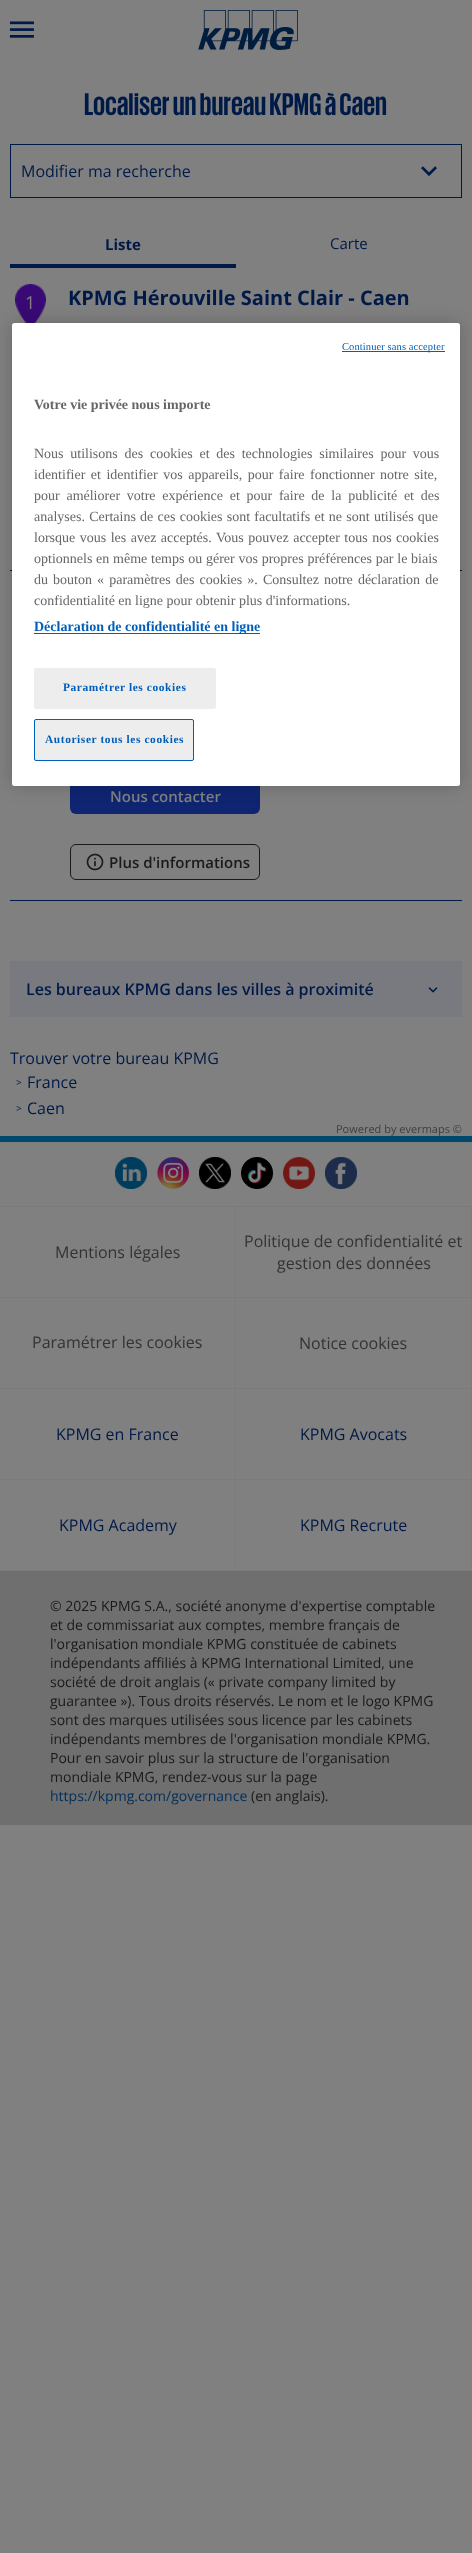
<!DOCTYPE html>
<meta charset="utf-8">
<style>body { margin: 0 } canvas { display: block }</style>
<canvas id="canvas" width="472" height="2553"></canvas>
<script type="module">
  const canvas = document.getElementById("canvas");
  const g = canvas.getContext("2d");
  g.miterLimit = 4;
  g.fontKerning = "normal";
  function drawText(s, x, y, [font, color]) {
    g.font = font;
    g.fillStyle = color;
    g.fillText(s, x, y);
  }
  function fillBox(x, y, w, h, color) {
    g.fillStyle = color;
    g.fillRect(x, y, w, h);
  }
  function fillRounded(x, y, w, h, r, color) {
    g.fillStyle = color;
    g.beginPath();
    g.roundRect(x, y, w, h, r);
    g.fill();
  }
  async function drawPicture(src, x, y, w, h) {
    const img = new Image();
    img.src = src;
    await img.decode();
    g.drawImage(img, x, y, w, h);
  }

  const s1 = ["bold 32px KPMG", "#001A47"];
  const s2 = ["16px Open Sans", "#001A47"];
  const s3 = ["bold 15px Open Sans", "#001A47"];
  const s4 = ["15px Open Sans", "#001A47"];
  const s5 = ["18px Open Sans", "#808080"];
  const s6 = ["bold 20px Open Sans", "#001A47"];
  const s7 = ["600 15px Open Sans", "#808080"];
  const s8 = ["600 15px Open Sans", "#1A1A1A"];
  const s9 = ["600 16px Open Sans", "#001A47"];
  const s10 = ["10px Open Sans", "#001A47"];
  const s11 = ["11px Open Sans", "#3E3E3E"];
  const s12 = ["16px Open Sans", "#333333"];
  const s13 = ["14px Open Sans", "#1A1A1A"];
  const s14 = ["14px Open Sans", "#002F5C"];
  const s15 = ["10.5px Liberation Serif", "#005EB8"];
  const s16 = ["bold 14px Liberation Serif", "#666666"];
  const s17 = ["14px Liberation Serif", "#666666"];
  const s18 = ["bold 14px Liberation Serif", "#005EB8"];
  const s19 = ["bold 11.4px Liberation Serif", "#005EB8"];

  fillBox(0, 0, 472, 2553, "#808080");
  await drawPicture("pic1.png", 9, 21, 25, 17);
  await drawPicture("pic2.png", 198, 10, 100, 40);
  drawText("Localiser un bureau KPMG à Caen", 84, 115, s1);
  g.strokeStyle = "#001A47";
  g.strokeRect(10.5, 144.5, 451, 53);
  drawText("Modifier ma recherche", 21, 177, s2);
  await drawPicture("pic3.png", 421, 166, 16, 10);
  fillBox(10, 264, 226, 4, "#001A47");
  drawText("Liste", 105, 250, s3);
  drawText("Carte", 330, 249, s4);
  fillBox(10, 570, 452, 1, "#001A47");
  await drawPicture("pic4.png", 15, 284, 31, 39);
  drawText("1", 25, 309, s5);
  drawText("KPMG Hérouville Saint Clair - Caen", 68, 305, s6);
  fillBox(10, 900, 452, 1, "#001A47");
  fillRounded(70, 778, 190, 36, 6, "#0F2571");
  drawText("Nous contacter", 110, 802, s7);
  g.beginPath();
  g.roundRect(70.5, 844.5, 189, 35, 5.5);
  g.strokeStyle = "#1A1A1A";
  g.stroke();
  await drawPicture("pic5.png", 86, 853, 18, 18);
  drawText("Plus d'informations", 109, 868, s8);
  fillBox(10, 961, 452, 56, "#787A80");
  drawText("Les bureaux KPMG dans les villes à proximité", 26, 995, s9);
  await drawPicture("pic6.png", 428, 987, 10, 6);
  drawText("Trouver votre bureau KPMG", 10, 1064, s2);
  drawText(">", 16, 1086, s10);
  drawText("France", 27, 1088, s2);
  drawText(">", 16, 1112, s10);
  drawText("Caen", 27, 1114, s2);
  drawText("Powered by evermaps ©", 336, 1133, s11);
  fillBox(0, 1136, 472, 6, "#00496D");
  fillBox(0, 1388, 472, 1, "#7B7B7B");
  await drawPicture("pic7.png", 115, 1157, 32, 32);
  await drawPicture("pic8.png", 157, 1157, 32, 32);
  await drawPicture("pic9.png", 199, 1157, 32, 32);
  await drawPicture("pic10.png", 241, 1157, 32, 32);
  await drawPicture("pic11.png", 283, 1157, 32, 32);
  await drawPicture("pic12.png", 325, 1157, 32, 32);
  fillBox(0, 1206, 472, 1, "#7B7B7B");
  fillBox(235, 1206, 1, 91, "#7B7B7B");
  drawText("Mentions légales", 55, 1258, s12);
  fillBox(471, 1206, 1, 91, "#7B7B7B");
  drawText("Politique de confidentialité et", 244, 1247, s12);
  drawText("gestion des données", 277, 1269, s12);
  fillBox(0, 1297, 472, 1, "#7B7B7B");
  fillBox(235, 1297, 1, 91, "#7B7B7B");
  drawText("Paramétrer les cookies", 32, 1348, s12);
  fillBox(471, 1297, 1, 91, "#7B7B7B");
  drawText("Notice cookies", 299, 1349, s12);
  fillBox(235, 1389, 1, 182, "#7B7B7B");
  fillBox(0, 1479, 236, 1, "#7B7B7B");
  drawText("KPMG en France", 56, 1440, s2);
  fillBox(471, 1389, 1, 182, "#7B7B7B");
  fillBox(236, 1479, 236, 1, "#7B7B7B");
  drawText("KPMG Avocats", 300, 1440, s2);
  fillBox(0, 1570, 472, 1, "#7B7B7B");
  drawText("KPMG Academy", 59, 1531, s2);
  drawText("KPMG Recrute", 300, 1531, s2);
  fillBox(0, 1571, 472, 254, "#6F6F6F");
  drawText("© 2025 KPMG S.A., société anonyme d'expertise comptable", 50, 1611, s13);
  drawText("et de commissariat aux comptes, membre français de", 50, 1630, s13);
  drawText("l'organisation mondiale KPMG constituée de cabinets", 50, 1649, s13);
  drawText("indépendants affiliés à KPMG International Limited, une", 50, 1668, s13);
  drawText("société de droit anglais (« private company limited by", 50, 1687, s13);
  drawText("guarantee »). Tous droits réservés. Le nom et le logo KPMG", 50, 1706, s13);
  drawText("sont des marques utilisées sous licence par les cabinets", 50, 1725, s13);
  drawText("indépendants membres de l'organisation mondiale KPMG.", 50, 1744, s13);
  drawText("Pour en savoir plus sur la structure de l'organisation", 50, 1763, s13);
  drawText("mondiale KPMG, rendez-vous sur la page", 50, 1782, s13);
  drawText("https://kpmg.com/governance", 50, 1801, s14);
  drawText("(en anglais).", 251, 1801, s13);
  g.fillStyle = "rgba(0, 0, 0, 0.2)";
  g.filter = "blur(9px)";
  g.beginPath();
  g.roundRect(12, 323, 448, 463, 2.5);
  g.fill();
  g.filter = "none";
  fillRounded(12, 323, 448, 463, 2.5, "#FFFFFF");
  fillBox(342, 351, 103, 1, "#005EB8");
  g.letterSpacing = "0.1px";
  drawText("Continuer sans accepter", 342, 350, s15);
  g.letterSpacing = "0px";
  drawText("Votre vie privée nous importe", 34, 409, s16);
  g.wordSpacing = "3.25px";
  drawText("Nous utilisons des cookies et des technologies similaires pour vous", 34, 458, s17);
  g.wordSpacing = "2px";
  drawText("identifier et identifier vos appareils, pour faire fonctionner notre site,", 34, 479, s17);
  g.wordSpacing = "3.25px";
  drawText("pour améliorer votre expérience et pour faire de la publicité et des", 34, 500, s17);
  g.wordSpacing = "0.75px";
  drawText("analyses. Certains de ces cookies sont facultatifs et ne sont utilisés que", 34, 521, s17);
  g.wordSpacing = "1px";
  drawText("lorsque vous les avez acceptés. Vous pouvez accepter tous nos cookies", 34, 542, s17);
  g.wordSpacing = "0.25px";
  drawText("optionnels en même temps ou gérer vos propres préférences par le biais", 34, 563, s17);
  g.wordSpacing = "1.6px";
  drawText("du bouton « paramètres des cookies ». Consultez notre déclaration de", 34, 584, s17);
  g.wordSpacing = "0px";
  drawText("confidentialité en ligne pour obtenir plus d'informations.", 34, 605, s17);
  fillBox(34, 633, 226, 1, "#005EB8");
  drawText("Déclaration de confidentialité en ligne", 34, 631, s18);
  g.fillStyle = "#EEEDED";
  g.beginPath();
  g.roundRect(34.5, 668.5, 181, 40, 1.5);
  g.fill();
  g.strokeStyle = "#EEEDED";
  g.stroke();
  g.letterSpacing = "0.6px";
  drawText("Paramétrer les cookies", 63, 691, s19);
  g.fillStyle = "#EEEDED";
  g.beginPath();
  g.roundRect(34.5, 719.5, 159, 41, 1.5);
  g.fill();
  g.strokeStyle = "#005EB8";
  g.stroke();
  drawText("Autoriser tous les cookies", 45, 743, s19);
</script>
